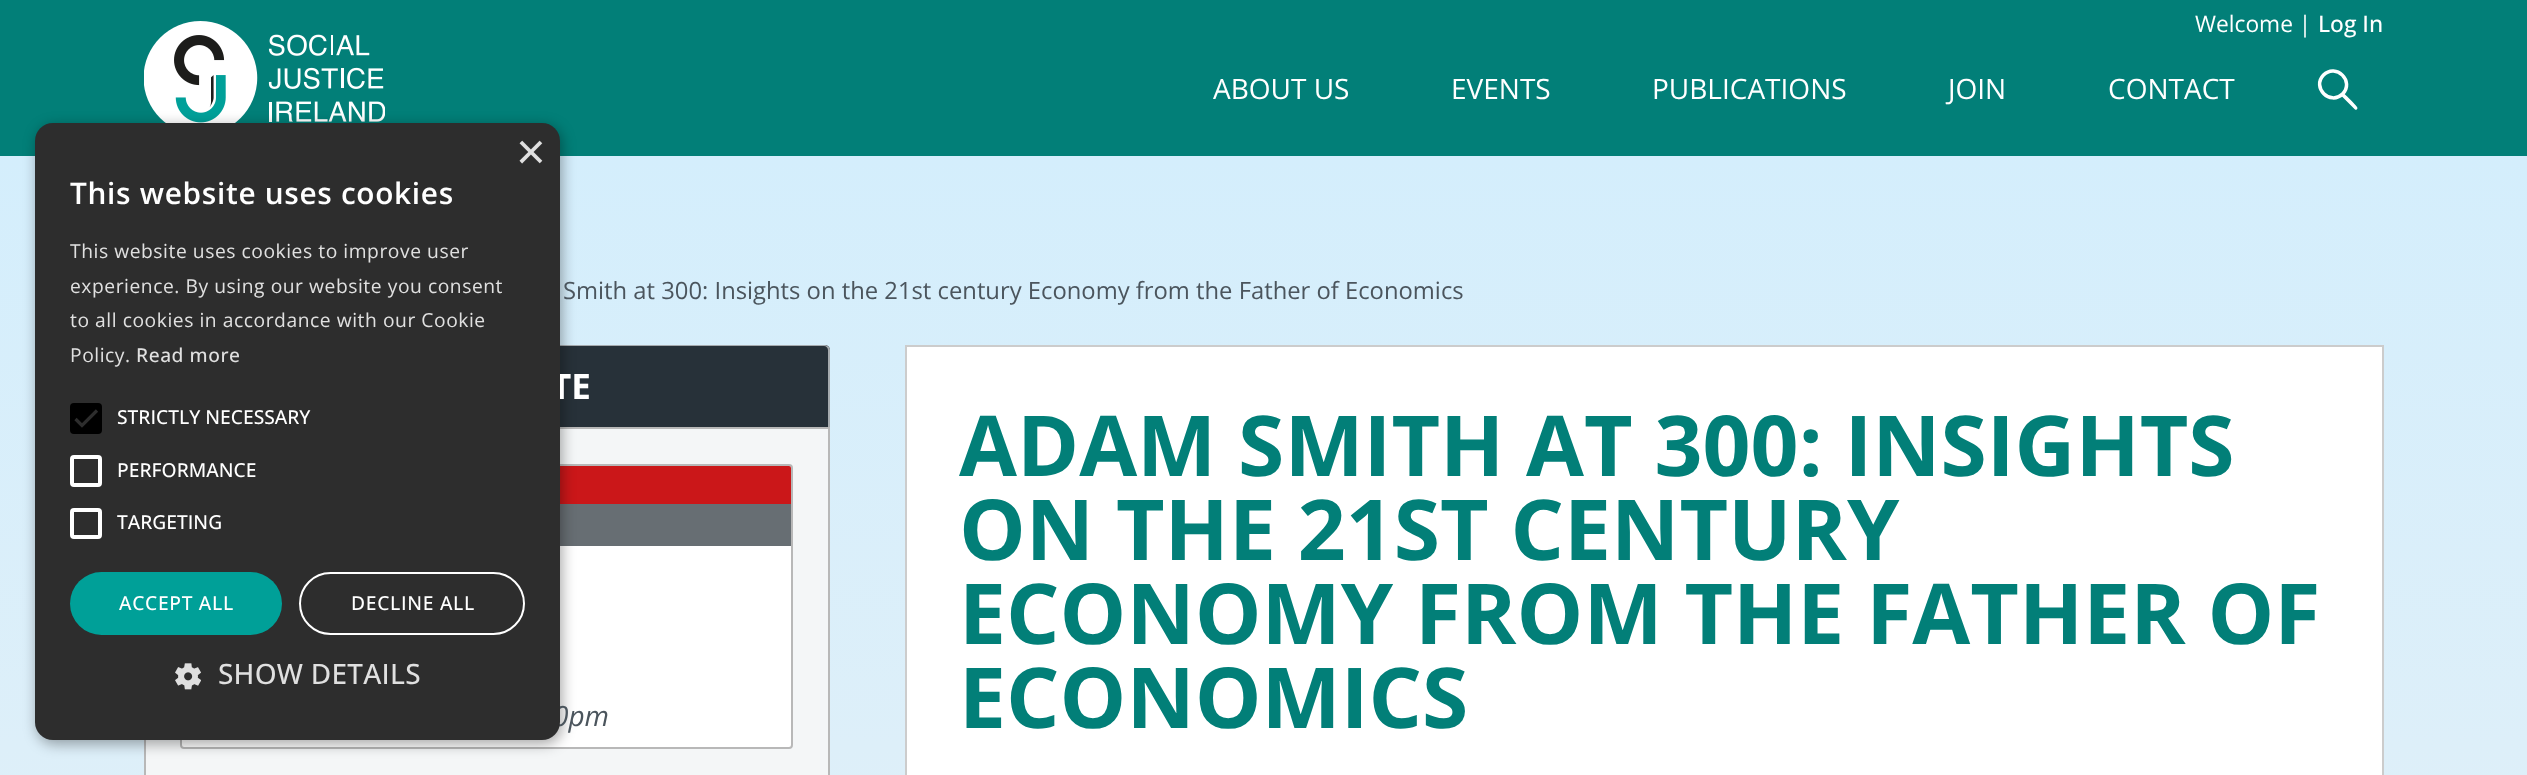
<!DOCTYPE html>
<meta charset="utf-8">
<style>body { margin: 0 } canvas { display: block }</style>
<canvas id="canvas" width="2527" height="775"></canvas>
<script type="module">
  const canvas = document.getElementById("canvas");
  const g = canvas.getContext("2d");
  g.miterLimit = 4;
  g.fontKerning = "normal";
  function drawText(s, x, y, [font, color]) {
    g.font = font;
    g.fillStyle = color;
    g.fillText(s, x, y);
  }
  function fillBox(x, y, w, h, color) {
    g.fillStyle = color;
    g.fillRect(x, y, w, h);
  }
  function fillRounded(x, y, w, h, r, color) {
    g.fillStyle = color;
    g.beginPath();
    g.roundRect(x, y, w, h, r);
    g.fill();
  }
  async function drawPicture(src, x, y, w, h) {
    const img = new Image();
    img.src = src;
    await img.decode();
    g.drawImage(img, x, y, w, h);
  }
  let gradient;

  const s1 = ["bold 35px Open Sans", "#FFFFFF"];
  const s2 = ["italic 28px Open Sans", "#4B555D"];
  const s3 = ["51px Liberation Sans", "#E0E0E0"];
  const s4 = ["600 29.75px Open Sans", "#FFFFFF"];
  const s5 = ["19.25px Open Sans", "#E0E0E0"];
  const s6 = ["500 19.25px Open Sans", "#E0E0E0"];
  const s7 = ["500 19.25px Open Sans", "#FFFFFF"];
  const s8 = ["500 28px Open Sans", "#E0E0E0"];
  const s9 = ["22.75px Open Sans", "#FFFFFF"];
  const s10 = ["500 22.75px Open Sans", "#FFFFFF"];
  const s11 = ["28px Open Sans", "#FFFFFF"];
  const s12 = ["23.8px Open Sans", "#4B555D"];
  const s13 = ["bold 84px Open Sans", "#027F78"];

  fillBox(0, 0, 2527, 775, "#FFFFFF");
  fillBox(0, 0, 2527, 156, "#027F78");
  await drawPicture("pic2.png", 144, 21, 241, 102);
  gradient = g.createLinearGradient(1263, 156, 1264, 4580);
  gradient.addColorStop(0, "#D4EEFC");
  gradient.addColorStop(0.4, "#EFF1F3");
  gradient.addColorStop(1, "#EFF1F3");
  g.fillStyle = gradient;
  g.fillRect(0, 156, 2527, 619);
  g.fillStyle = "#273139";
  g.beginPath();
  g.roundRect(144, 345, 686, 82, [5, 5, 0, 0]);
  g.fill();
  g.fillStyle = "#A5AAAE";
  g.beginPath();
  g.moveTo(149, 345);
  g.lineTo(824, 345);
  g.bezierCurveTo(827, 345, 830, 347, 830, 350);
  g.lineTo(830, 427);
  g.lineTo(144, 427);
  g.lineTo(144, 350);
  g.bezierCurveTo(144, 347, 146, 345, 149, 345);
  g.closePath();
  g.moveTo(149, 346);
  g.lineTo(824, 346);
  g.bezierCurveTo(826, 346, 828, 348, 828, 350);
  g.lineTo(828, 427);
  g.lineTo(145, 427);
  g.lineTo(145, 350);
  g.bezierCurveTo(145, 348, 147, 346, 149, 346);
  g.closePath();
  g.fill("evenodd");
  g.fillStyle = "#F4F6F7";
  g.beginPath();
  g.rect(145, 428, 684, 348);
  g.fill();
  g.strokeStyle = "#B8B8B8";
  g.lineWidth = 2;
  g.stroke();
  g.fillStyle = "#FFFFFF";
  g.beginPath();
  g.roundRect(181, 465, 611, 283, 3);
  g.fill();
  g.stroke();
  g.fillStyle = "#CB1719";
  g.beginPath();
  g.roundRect(182, 466, 609, 38, [2, 2, 0, 0]);
  g.fill();
  fillBox(560, 504, 231, 42, "#676E73");
  g.fillStyle = "rgba(0, 0, 0, 0.35)";
  g.filter = "blur(7px)";
  g.beginPath();
  g.roundRect(37, 126, 525, 618, 18);
  g.fill();
  g.filter = "none";
  drawText("TE", 551, 399, s1);
  drawText("0pm", 553, 726, s2);
  fillRounded(35, 123, 525, 617, 18, "#2D2D2D");
  drawText("×", 516, 169, s3);
  g.letterSpacing = "0.7px";
  drawText("This website uses cookies", 70, 204, s4);
  g.letterSpacing = "0.55px";
  drawText("This website uses cookies to improve user", 70, 258, s5);
  drawText("experience. By using our website you consent", 70, 293, s5);
  drawText("to all cookies in accordance with our Cookie", 70, 327, s5);
  drawText("Policy.", 70, 362, s5);
  drawText("Read more", 136, 362, s6);
  fillRounded(70, 403, 32, 31, 4, "#000000");
  g.beginPath();
  g.moveTo(75.5, 419);
  g.lineTo(82, 425.5);
  g.lineTo(97, 410.5);
  g.strokeStyle = "#2D2D2D";
  g.lineWidth = 3.2;
  g.stroke();
  g.letterSpacing = "0px";
  drawText("STRICTLY NECESSARY", 117, 424, s7);
  g.beginPath();
  g.roundRect(72, 457, 28, 28, 2);
  g.strokeStyle = "#FFFFFF";
  g.lineWidth = 4;
  g.stroke();
  drawText("PERFORMANCE", 117, 477, s7);
  g.beginPath();
  g.roundRect(72, 510, 28, 27, 2);
  g.stroke();
  drawText("TARGETING", 117, 529, s7);
  fillRounded(70, 572, 212, 63, 31.5, "#00A098");
  g.letterSpacing = "0.7px";
  drawText("ACCEPT ALL", 119, 610, s7);
  g.beginPath();
  g.roundRect(300, 573, 224, 61, 30.5);
  g.lineWidth = 2;
  g.stroke();
  drawText("DECLINE ALL", 351, 610, s7);
  await drawPicture("pic1.png", 175, 663, 26, 27);
  g.letterSpacing = "0.25px";
  drawText("SHOW DETAILS", 218, 684, s8);
  g.letterSpacing = "0px";
  drawText("Welcome |", 2195, 32, s9);
  drawText("Log In", 2318, 32, s10);
  drawText("ABOUT US", 1213, 99, s11);
  drawText("EVENTS", 1451, 99, s11);
  drawText("PUBLICATIONS", 1652, 99, s11);
  drawText("JOIN", 1948, 99, s11);
  drawText("CONTACT", 2108, 99, s11);
  g.beginPath();
  g.moveTo(2323.5, 75);
  g.bezierCurveTo(2336, 62.5, 2355, 81.5, 2342.5, 94);
  g.bezierCurveTo(2330, 106, 2311.5, 87.5, 2323.5, 75);
  g.closePath();
  g.lineWidth = 3.5;
  g.stroke();
  g.beginPath();
  g.moveTo(2343, 92.5);
  g.bezierCurveTo(2345, 94.5, 2357.5, 106, 2357.5, 108);
  g.bezierCurveTo(2357.5, 109, 2356, 110.5, 2355, 109.5);
  g.lineTo(2340.5, 95);
  g.closePath();
  g.fill();
  drawText("Smith at 300: Insights on the 21st century Economy from the Father of Economics", 563, 299, s12);
  g.fillStyle = "#FFFFFF";
  g.beginPath();
  g.rect(906, 346, 1477, 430);
  g.fill();
  g.strokeStyle = "#CCCCCC";
  g.lineWidth = 2;
  g.stroke();
  drawText("ADAM SMITH AT 300: INSIGHTS", 959, 476, s13);
  drawText("ON THE 21ST CENTURY", 959, 560, s13);
  drawText("ECONOMY FROM THE FATHER OF", 959, 644, s13);
  drawText("ECONOMICS", 959, 728, s13);
</script>
